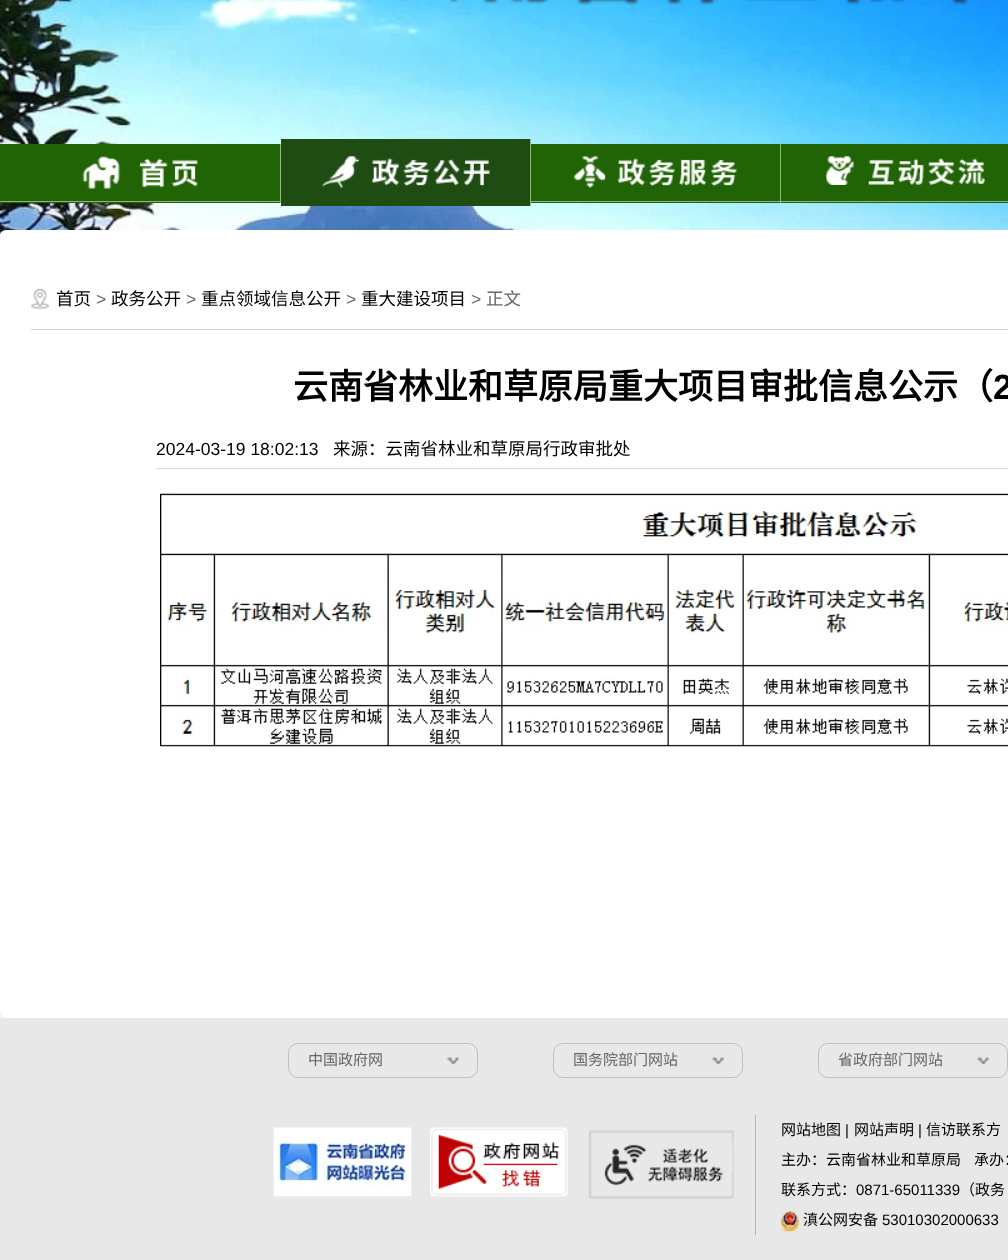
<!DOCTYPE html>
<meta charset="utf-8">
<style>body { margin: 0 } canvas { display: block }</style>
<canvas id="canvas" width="1008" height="1260"></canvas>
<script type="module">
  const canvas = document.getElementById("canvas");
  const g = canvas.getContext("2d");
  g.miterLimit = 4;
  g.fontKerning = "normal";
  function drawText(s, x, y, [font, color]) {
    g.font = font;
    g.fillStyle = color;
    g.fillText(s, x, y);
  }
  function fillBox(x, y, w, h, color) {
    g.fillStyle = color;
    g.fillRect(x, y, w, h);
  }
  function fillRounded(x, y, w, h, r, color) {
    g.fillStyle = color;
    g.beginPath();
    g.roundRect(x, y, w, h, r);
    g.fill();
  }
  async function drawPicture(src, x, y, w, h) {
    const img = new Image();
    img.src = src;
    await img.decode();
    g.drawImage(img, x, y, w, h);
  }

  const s1 = ["17.5px Noto Sans CJK SC", "#000000"];
  const s2 = ["17.5px Liberation Sans", "#666666"];
  const s3 = ["17.5px Noto Sans CJK SC", "#666666"];
  const s4 = ["bold 35px Noto Sans CJK SC", "#000000"];
  const s5 = ["bold 35px Liberation Sans", "#000000"];
  const s6 = ["17.5px Liberation Sans", "#000000"];
  const s7 = ["15px Noto Sans CJK SC", "#666666"];
  const s8 = ["15px Noto Sans CJK SC", "#000000"];
  const s9 = ["15px Liberation Sans", "#000000"];

  fillBox(0, 0, 1008, 1260, "#FFFFFF");
  await drawPicture("pic1.png", 0, 0, 1008, 1018);
  await drawPicture("pic2.png", 400, 0, 569, 5);
  fillBox(0, 144, 280, 59, "#206405");
  fillBox(280, 144, 1, 59, "#92BA83");
  fillBox(0, 201, 281, 1, "#90B282");
  await drawPicture("pic3.png", 82, 156, 116, 33);
  fillBox(281, 139, 249, 67, "#1E4C12");
  fillBox(530, 139, 1, 67, "#92BA83");
  await drawPicture("pic4.png", 322, 156, 168, 32);
  fillBox(531, 144, 249, 59, "#206405");
  fillBox(780, 144, 1, 59, "#92BA83");
  fillBox(531, 201, 250, 1, "#90B282");
  await drawPicture("pic5.png", 573, 156, 165, 32);
  fillBox(781, 144, 227, 59, "#206405");
  fillBox(781, 201, 227, 1, "#90B282");
  await drawPicture("pic6.png", 826, 156, 159, 29);
  fillRounded(0, 230, 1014, 788, 6, "#FFFFFF");
  await drawPicture("pic7.png", 31, 288, 18, 21);
  fillBox(31, 329, 977, 1, "#C3D4E7");
  drawText("首页", 56, 305, s1);
  drawText(">", 96, 305, s2);
  drawText("政务公开", 111, 305, s1);
  drawText(">", 186, 305, s2);
  drawText("重点领域信息公开", 201, 305, s1);
  drawText(">", 346, 305, s2);
  drawText("重大建设项目", 361, 305, s1);
  drawText(">", 471, 305, s2);
  drawText("正文", 486, 305, s3);
  drawText("云南省林业和草原局重大项目审批信息公示（", 293, 399, s4);
  drawText("2", 993, 399, s5);
  fillBox(156, 468, 852, 1, "#DCDCDC");
  drawText("2024-03-19 18:02:13", 156, 455, s6);
  drawText("来源：云南省林业和草原局行政审批处", 333, 455, s1);
  await drawPicture("pic8.png", 160, 493, 848, 254);
  fillBox(0, 1018, 1008, 242, "#E8E8E8");
  await drawPicture("pic9.png", 447, 1057, 12, 7);
  g.beginPath();
  g.roundRect(288.5, 1043.5, 189, 34, 9.5);
  g.strokeStyle = "#BFBFBF";
  g.stroke();
  drawText("中国政府网", 308, 1065, s7);
  await drawPicture("pic9.png", 712, 1057, 12, 7);
  g.beginPath();
  g.roundRect(553.5, 1043.5, 189, 34, 9.5);
  g.stroke();
  drawText("国务院部门网站", 573, 1065, s7);
  await drawPicture("pic10.png", 977, 1057, 12, 7);
  g.beginPath();
  g.roundRect(818.5, 1043.5, 189, 34, 9.5);
  g.stroke();
  drawText("省政府部门网站", 838, 1065, s7);
  await drawPicture("pic11.png", 273, 1127, 139, 70);
  await drawPicture("pic12.png", 430, 1127, 138, 70);
  await drawPicture("pic13.png", 588, 1130, 146, 69);
  fillBox(755, 1115, 1, 120, "#B7B7B7");
  drawText("网站地图", 781, 1135, s8);
  drawText("|", 845, 1135, s9);
  drawText("网站声明", 854, 1135, s8);
  drawText("|", 918, 1135, s9);
  drawText("信访联系方", 926, 1135, s8);
  drawText("主办：云南省林业和草原局", 781, 1165, s8);
  drawText("承办：", 974, 1165, s8);
  drawText("联系方式：", 781, 1195, s8);
  drawText("0871-65011339", 856, 1195, s9);
  drawText("（政务", 960, 1195, s8);
  await drawPicture("pic14.png", 781, 1211, 18, 21);
  drawText("滇公网安备", 803, 1225, s8);
  drawText("53010302000633", 882, 1225, s9);
</script>
